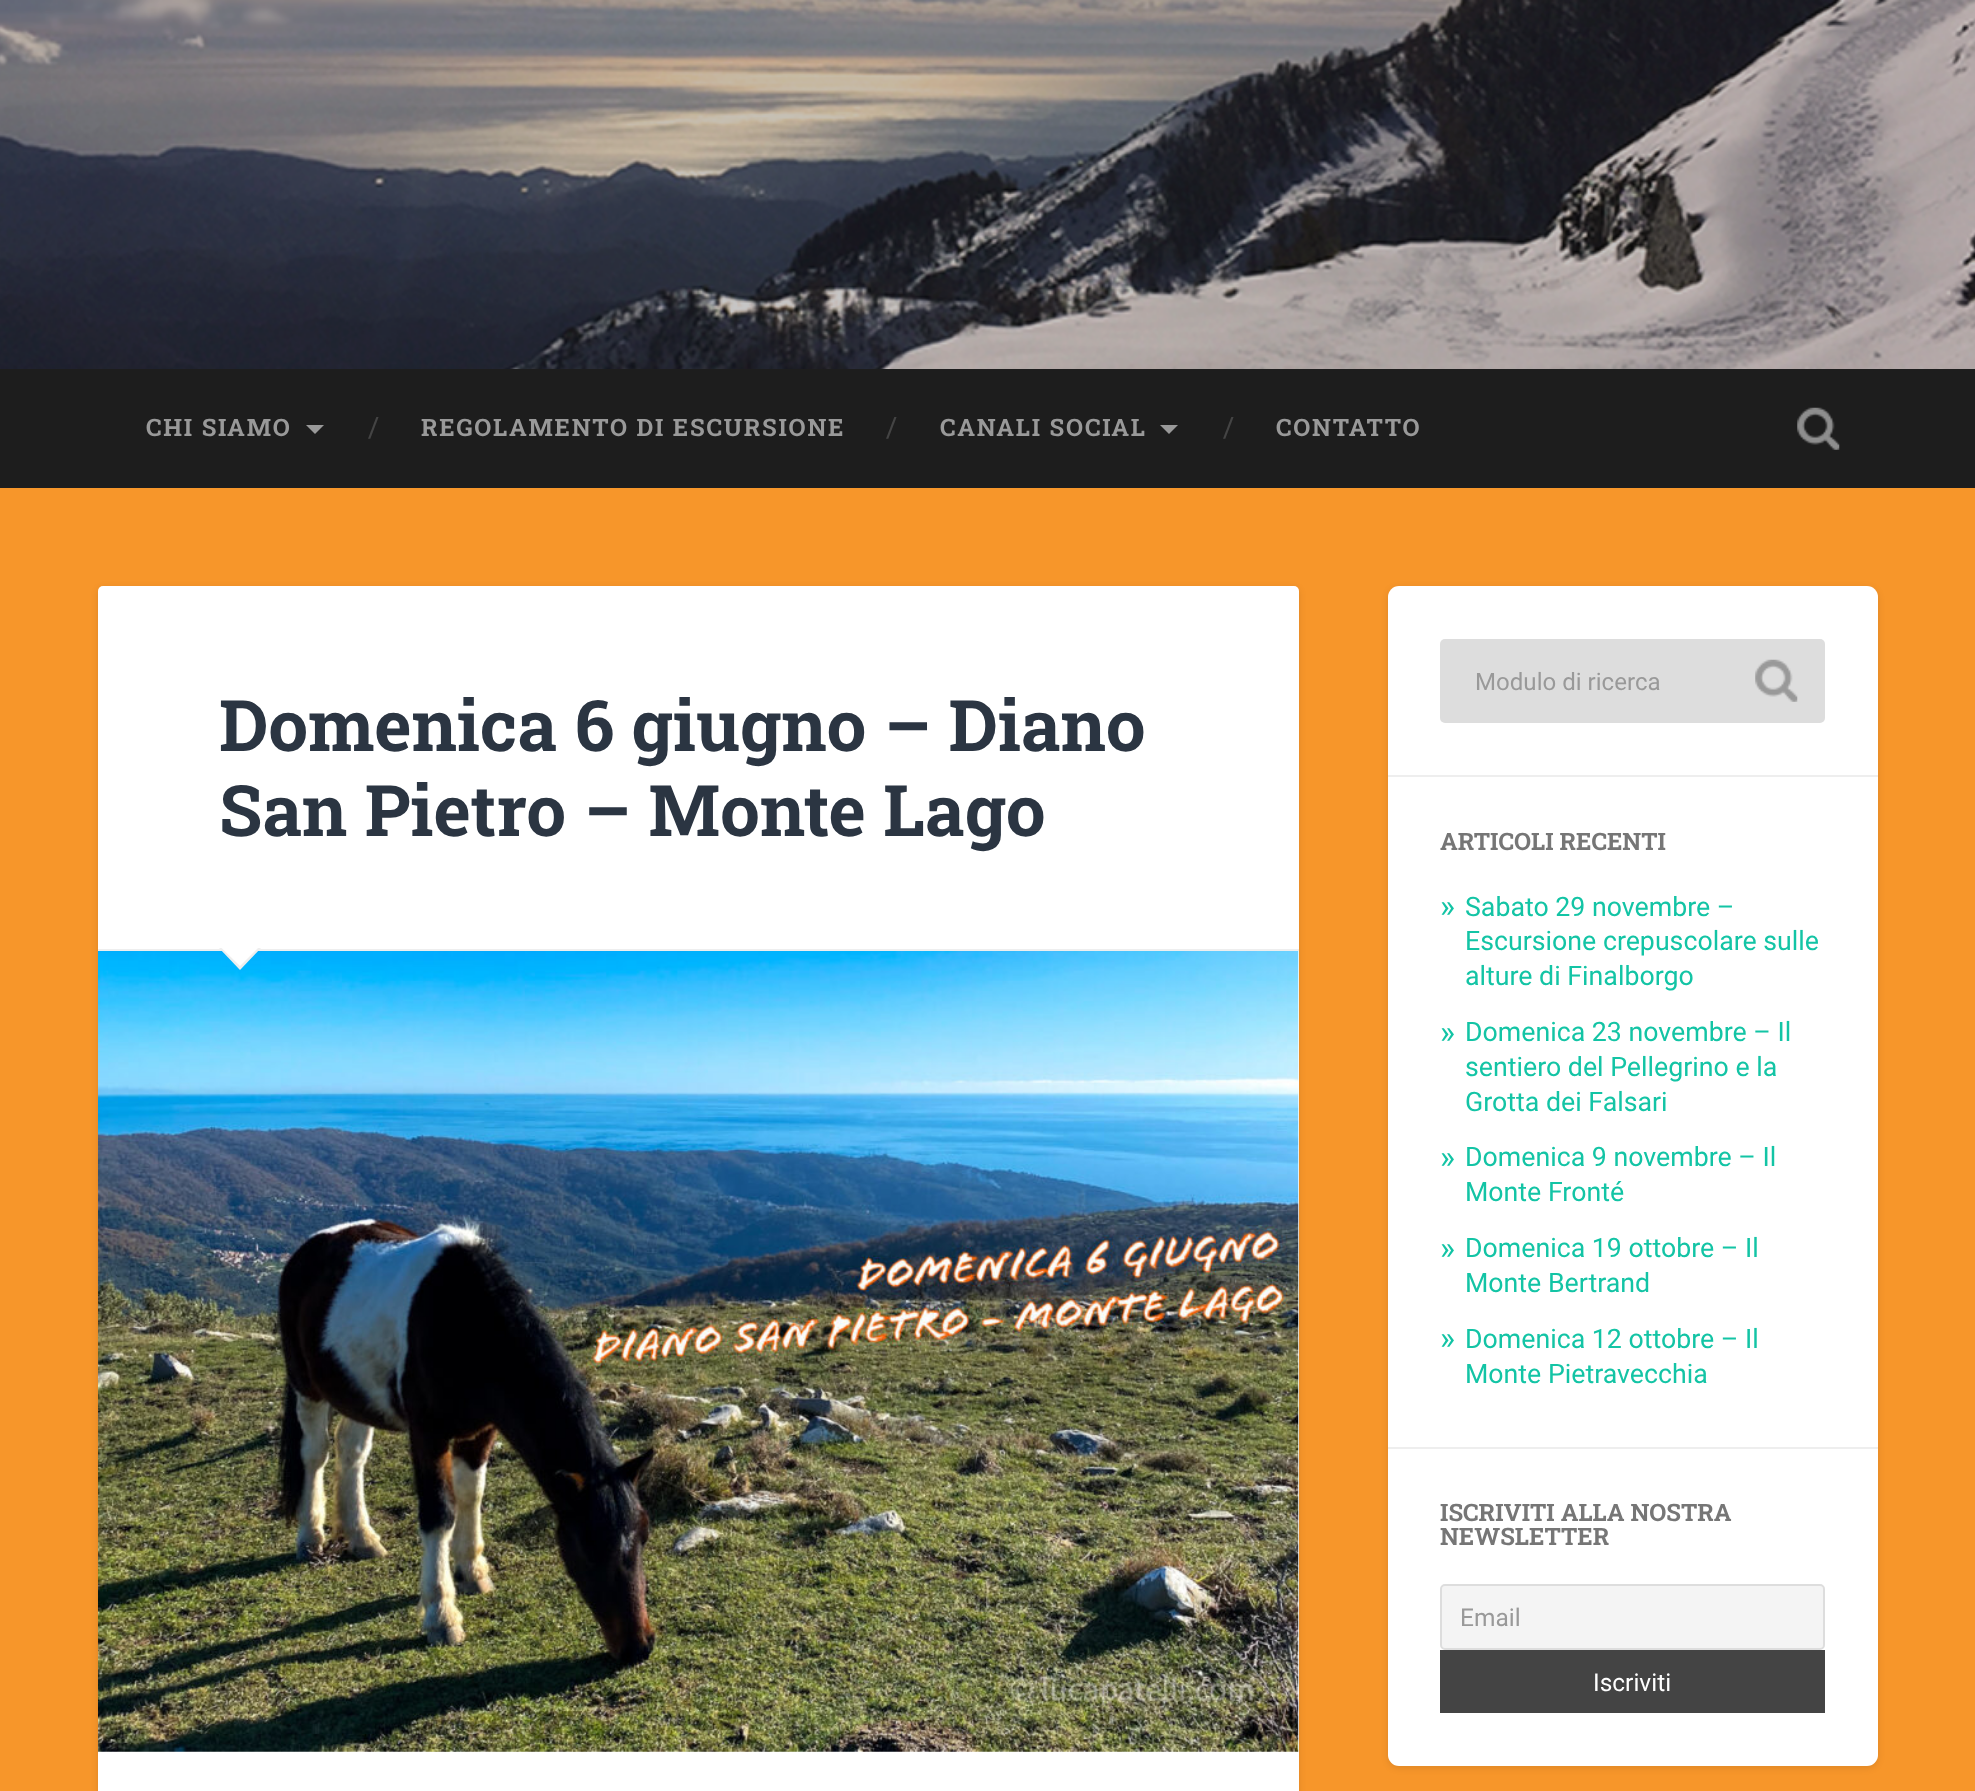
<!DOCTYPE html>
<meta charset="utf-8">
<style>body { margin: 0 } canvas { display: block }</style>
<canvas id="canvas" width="1975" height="1791"></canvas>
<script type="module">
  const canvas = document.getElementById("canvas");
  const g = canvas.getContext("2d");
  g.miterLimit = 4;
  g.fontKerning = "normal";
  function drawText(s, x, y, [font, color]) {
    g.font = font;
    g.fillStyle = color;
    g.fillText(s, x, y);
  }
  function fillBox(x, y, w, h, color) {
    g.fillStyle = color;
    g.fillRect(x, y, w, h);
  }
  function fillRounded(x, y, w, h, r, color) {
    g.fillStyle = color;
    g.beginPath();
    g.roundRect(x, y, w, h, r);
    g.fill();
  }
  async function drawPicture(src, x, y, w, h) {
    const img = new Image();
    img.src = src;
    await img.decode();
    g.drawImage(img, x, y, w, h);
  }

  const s1 = ["bold 24.1px Roboto Slab", "#999999"];
  const s2 = ["28px Roboto Slab", "#444444"];
  const s3 = ["bold 70.9px Roboto Slab", "#2B3542"];
  const s4 = ["24.1px Roboto", "#999999"];
  const s5 = ["bold 24.1px Roboto Slab", "#767676"];
  const s6 = ["32px Roboto", "#13C4A5"];
  const s7 = ["26.75px Roboto", "#13C4A5"];
  const s8 = ["24.5px Roboto", "#999999"];
  const s9 = ["24.5px Roboto", "#FFFFFF"];

  fillBox(0, 0, 1975, 1791, "#F7962A");
  await drawPicture("pic1.png", 0, 0, 1975, 369);
  fillBox(0, 369, 1975, 119, "#1D1D1D");
  g.letterSpacing = "1.75px";
  drawText("CHI SIAMO", 146, 436, s1);
  g.beginPath();
  g.moveTo(306, 425);
  g.lineTo(324, 425);
  g.lineTo(315, 434);
  g.closePath();
  g.fill();
  g.letterSpacing = "0px";
  drawText("/", 368, 437, s2);
  g.letterSpacing = "1.75px";
  drawText("REGOLAMENTO DI ESCURSIONE", 421, 436, s1);
  g.letterSpacing = "0px";
  drawText("/", 886, 437, s2);
  g.letterSpacing = "1.75px";
  drawText("CANALI SOCIAL", 940, 436, s1);
  g.beginPath();
  g.moveTo(1160, 425);
  g.lineTo(1178, 425);
  g.lineTo(1169, 434);
  g.closePath();
  g.fill();
  g.letterSpacing = "0px";
  drawText("/", 1223, 437, s2);
  g.letterSpacing = "1.75px";
  drawText("CONTATTO", 1276, 436, s1);
  await drawPicture("pic2.png", 1797, 407, 43, 43);
  g.fillStyle = "rgba(0, 0, 0, 0.1)";
  g.filter = "blur(3.5px)";
  g.beginPath();
  g.roundRect(98, 588, 1201, 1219, 5);
  g.fill();
  g.filter = "none";
  fillRounded(98, 586, 1201, 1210, 5, "#FFFFFF");
  fillBox(98, 949, 1201, 2, "#EEEEEE");
  g.letterSpacing = "0px";
  drawText("Domenica 6 giugno – Diano", 219, 751, s3);
  drawText("San Pietro – Monte Lago", 219, 836, s3);
  await drawPicture("pic3.png", 98, 951, 1201, 801);
  g.fillStyle = "#EEEEEE";
  g.beginPath();
  g.moveTo(219, 948);
  g.lineTo(261, 948);
  g.lineTo(240, 970);
  g.closePath();
  g.fill();
  g.fillStyle = "#FFFFFF";
  g.beginPath();
  g.moveTo(220.5, 947);
  g.lineTo(259, 947);
  g.lineTo(240, 966);
  g.closePath();
  g.fill();
  g.fillStyle = "rgba(0, 0, 0, 0.1)";
  g.filter = "blur(3.5px)";
  g.beginPath();
  g.roundRect(1388, 588, 490, 1180, 11);
  g.fill();
  g.filter = "none";
  fillRounded(1388, 586, 490, 1180, 11, "#FFFFFF");
  fillRounded(1440, 639, 385, 84, 5, "#DDDDDD");
  drawText("Modulo di ricerca", 1475, 690, s4);
  await drawPicture("pic4.png", 1755, 659, 43, 43);
  fillBox(1388, 775, 490, 2, "#EEEEEE");
  drawText("ARTICOLI RECENTI", 1440, 850, s5);
  drawText("»", 1440, 917, s6);
  drawText("Sabato 29 novembre –", 1465, 916, s7);
  drawText("Escursione crepuscolare sulle", 1465, 950, s7);
  drawText("alture di Finalborgo", 1465, 985, s7);
  drawText("»", 1440, 1043, s6);
  drawText("Domenica 23 novembre – Il", 1465, 1041, s7);
  drawText("sentiero del Pellegrino e la", 1465, 1076, s7);
  drawText("Grotta dei Falsari", 1465, 1111, s7);
  drawText("»", 1440, 1168, s6);
  drawText("Domenica 9 novembre – Il", 1465, 1166, s7);
  drawText("Monte Fronté", 1465, 1201, s7);
  drawText("»", 1440, 1259, s6);
  drawText("Domenica 19 ottobre – Il", 1465, 1257, s7);
  drawText("Monte Bertrand", 1465, 1292, s7);
  drawText("»", 1440, 1349, s6);
  drawText("Domenica 12 ottobre – Il", 1465, 1348, s7);
  drawText("Monte Pietravecchia", 1465, 1383, s7);
  fillBox(1388, 1447, 490, 2, "#EEEEEE");
  drawText("ISCRIVITI ALLA NOSTRA", 1440, 1521, s5);
  drawText("NEWSLETTER", 1440, 1545, s5);
  g.fillStyle = "#F4F4F4";
  g.beginPath();
  g.roundRect(1441, 1585, 383, 64, 4);
  g.fill();
  g.strokeStyle = "#DDDDDD";
  g.lineWidth = 2;
  g.stroke();
  drawText("Email", 1460, 1626, s8);
  fillBox(1440, 1650, 385, 63, "#444444");
  drawText("Iscriviti", 1593, 1691, s9);
</script>
